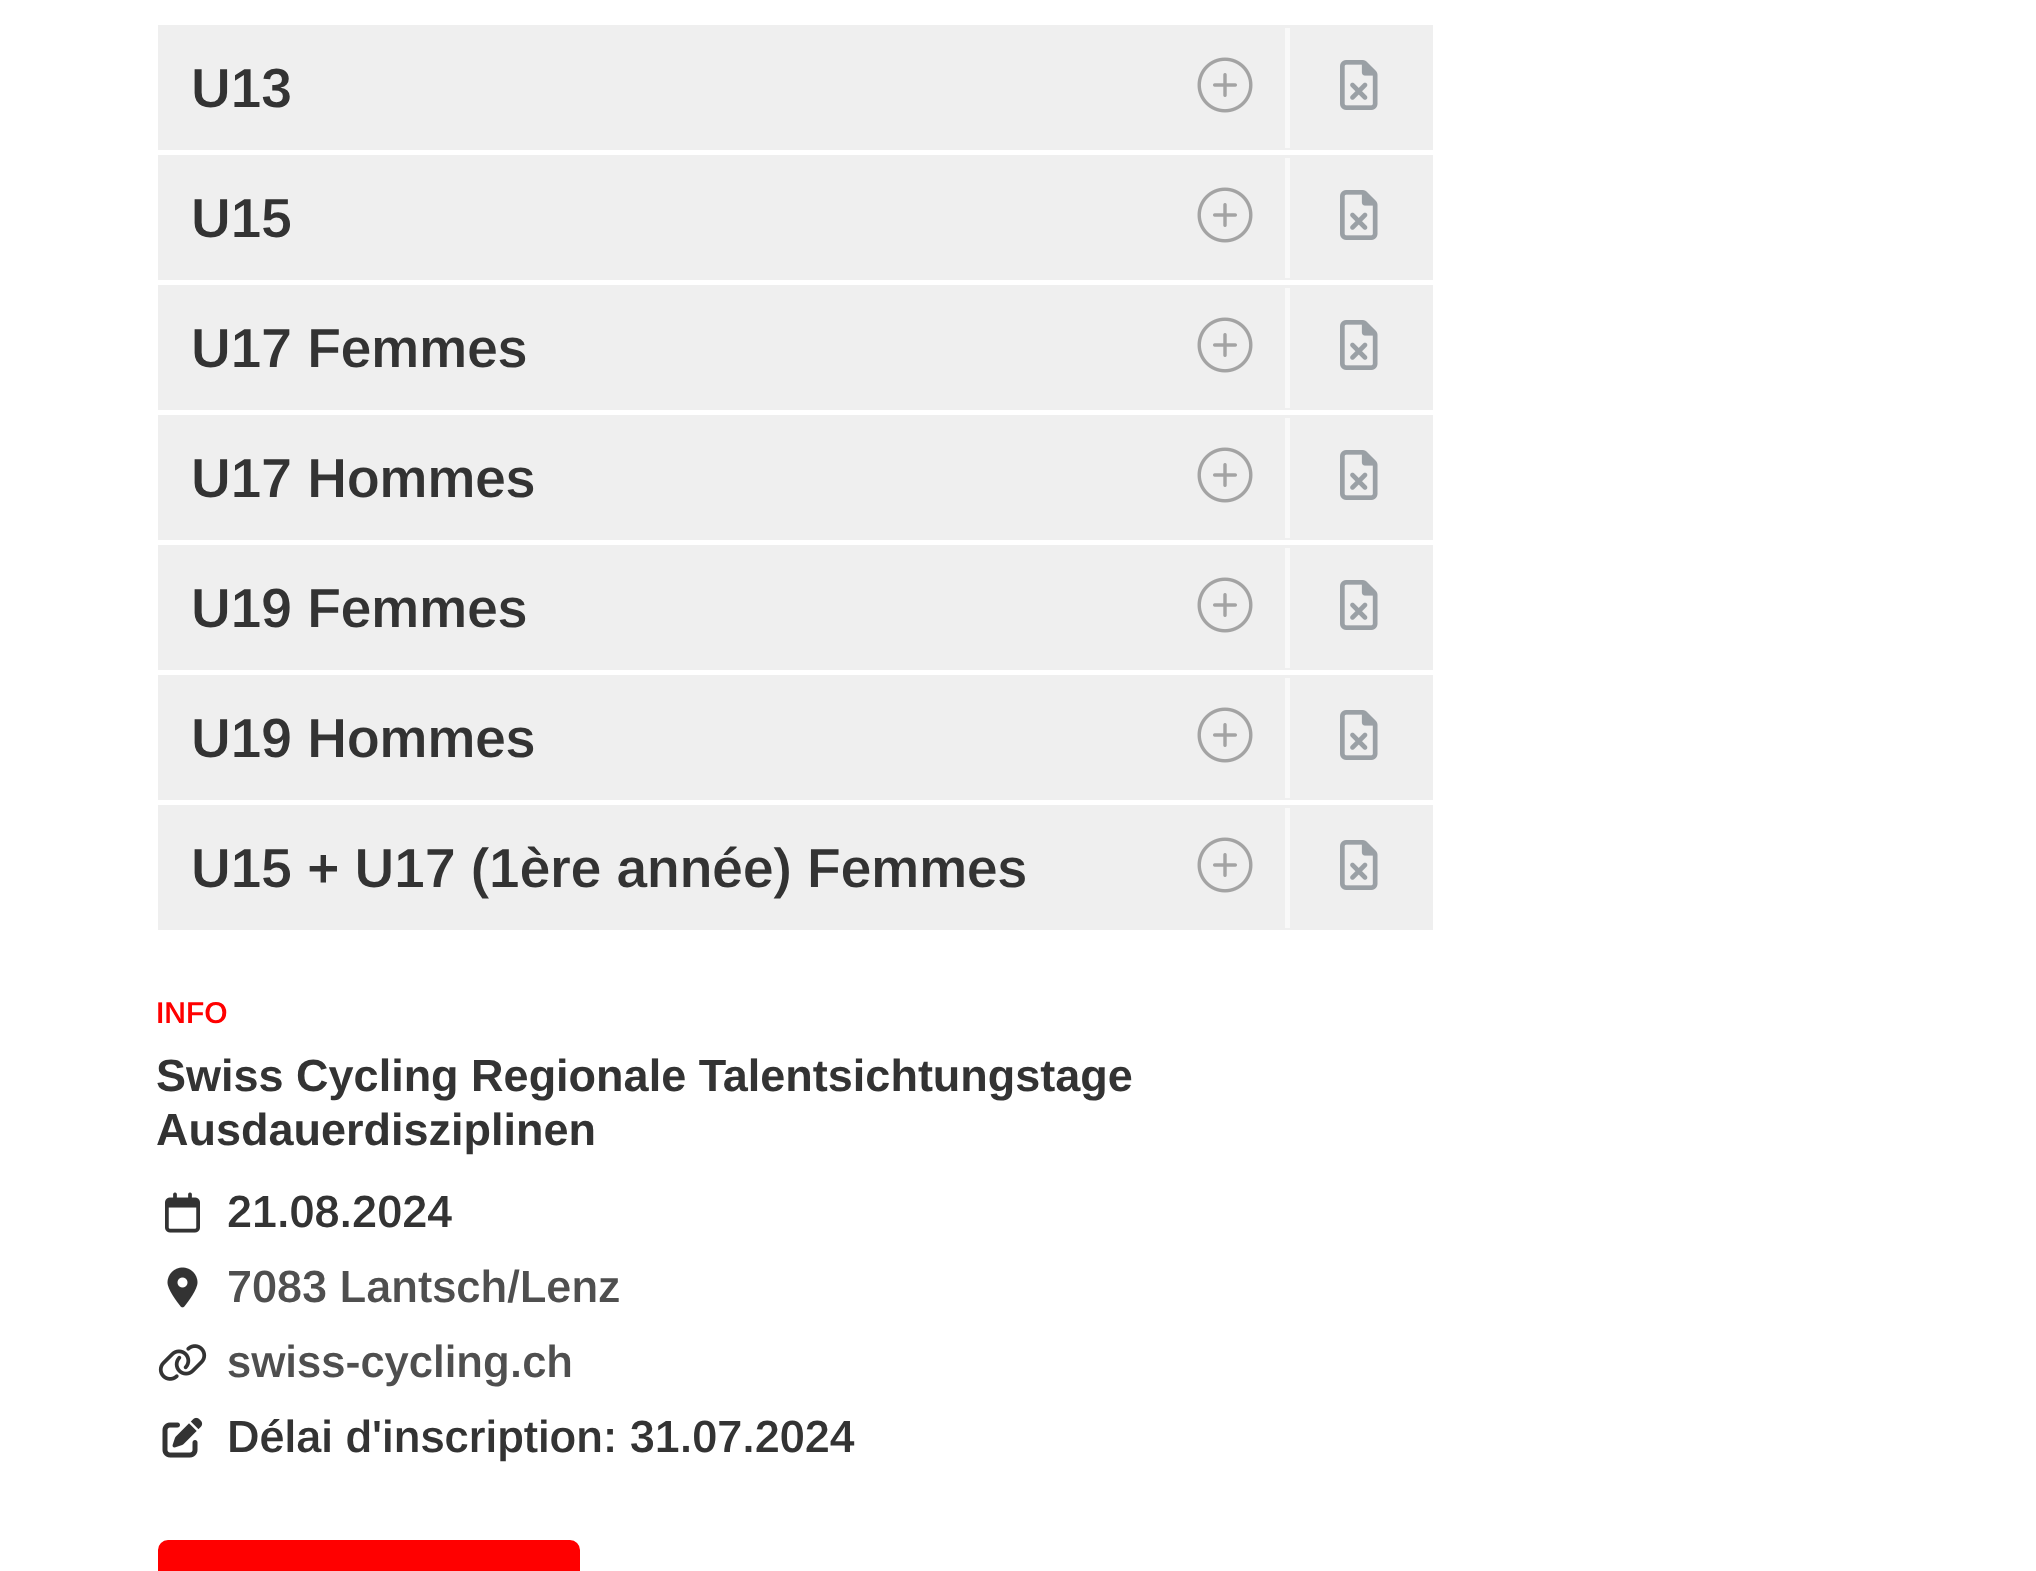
<!DOCTYPE html>
<meta charset="utf-8">
<style>body { margin: 0 } canvas { display: block }</style>
<canvas id="canvas" width="2036" height="1571"></canvas>
<script type="module">
  const canvas = document.getElementById("canvas");
  const g = canvas.getContext("2d");
  g.miterLimit = 4;
  g.fontKerning = "normal";
  function drawText(s, x, y, [font, color]) {
    g.font = font;
    g.fillStyle = color;
    g.fillText(s, x, y);
  }
  function fillBox(x, y, w, h, color) {
    g.fillStyle = color;
    g.fillRect(x, y, w, h);
  }
  async function drawPicture(src, x, y, w, h) {
    const img = new Image();
    img.src = src;
    await img.decode();
    g.drawImage(img, x, y, w, h);
  }

  const s1 = ["600 55px Arimo", "#333333"];
  const s2 = ["600 30px Arimo", "#FF0000"];
  const s3 = ["bold 45px Arimo", "#333333"];
  const s4 = ["600 45px Arimo", "#333333"];
  const s5 = ["600 45px Arimo", "#4F4F4F"];

  fillBox(0, 0, 2036, 1571, "#FFFFFF");
  fillBox(158, 25, 1275, 125, "#EFEFEF");
  drawText("U13", 191, 107, s1);
  await drawPicture("pic1.png", 1197, 57, 56, 56);
  fillBox(1285, 28, 5, 120, "#F9F9F9");
  await drawPicture("pic2.png", 1340, 60, 38, 50);
  fillBox(158, 155, 1275, 125, "#EFEFEF");
  drawText("U15", 191, 237, s1);
  await drawPicture("pic1.png", 1197, 187, 56, 56);
  fillBox(1285, 158, 5, 120, "#F9F9F9");
  await drawPicture("pic2.png", 1340, 190, 38, 50);
  fillBox(158, 285, 1275, 125, "#EFEFEF");
  drawText("U17 Femmes", 191, 367, s1);
  await drawPicture("pic1.png", 1197, 317, 56, 56);
  fillBox(1285, 288, 5, 120, "#F9F9F9");
  await drawPicture("pic2.png", 1340, 320, 38, 50);
  fillBox(158, 415, 1275, 125, "#EFEFEF");
  drawText("U17 Hommes", 191, 497, s1);
  await drawPicture("pic1.png", 1197, 447, 56, 56);
  fillBox(1285, 418, 5, 120, "#F9F9F9");
  await drawPicture("pic2.png", 1340, 450, 38, 50);
  fillBox(158, 545, 1275, 125, "#EFEFEF");
  drawText("U19 Femmes", 191, 627, s1);
  await drawPicture("pic1.png", 1197, 577, 56, 56);
  fillBox(1285, 548, 5, 120, "#F9F9F9");
  await drawPicture("pic2.png", 1340, 580, 38, 50);
  fillBox(158, 675, 1275, 125, "#EFEFEF");
  drawText("U19 Hommes", 191, 757, s1);
  await drawPicture("pic1.png", 1197, 707, 56, 56);
  fillBox(1285, 678, 5, 120, "#F9F9F9");
  await drawPicture("pic2.png", 1340, 710, 38, 50);
  fillBox(158, 805, 1275, 125, "#EFEFEF");
  drawText("U15 + U17 (1ère année) Femmes", 191, 887, s1);
  await drawPicture("pic1.png", 1197, 837, 56, 56);
  fillBox(1285, 808, 5, 120, "#F9F9F9");
  await drawPicture("pic2.png", 1340, 840, 38, 50);
  drawText("INFO", 156, 1023, s2);
  drawText("Swiss Cycling Regionale Talentsichtungstage", 156, 1091, s3);
  drawText("Ausdauerdisziplinen", 156, 1145, s3);
  await drawPicture("pic3.png", 165, 1192, 35, 41);
  drawText("21.08.2024", 227, 1227, s4);
  await drawPicture("pic4.png", 167, 1267, 31, 41);
  drawText("7083 Lantsch/Lenz", 227, 1302, s5);
  await drawPicture("pic5.png", 158, 1344, 49, 37);
  drawText("swiss-cycling.ch", 227, 1377, s5);
  await drawPicture("pic6.png", 162, 1417, 41, 41);
  drawText("Délai d'inscription: 31.07.2024", 227, 1452, s4);
  g.fillStyle = "#FF0000";
  g.beginPath();
  g.roundRect(159.5, 1541.5, 419, 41, 8.5);
  g.fill();
  g.strokeStyle = "#FF0000";
  g.lineWidth = 3;
  g.stroke();
</script>
